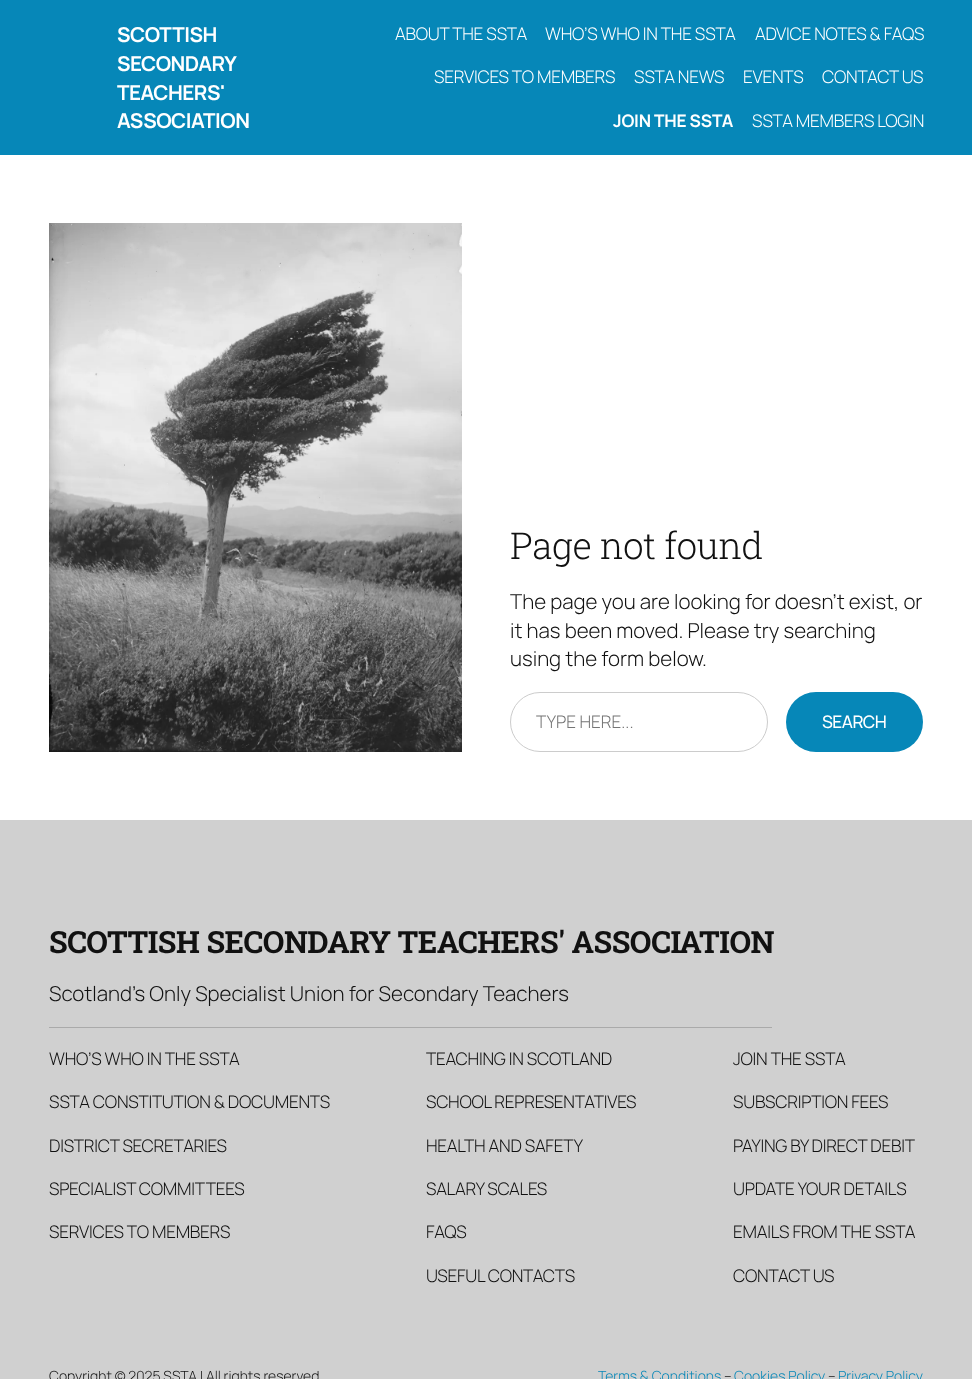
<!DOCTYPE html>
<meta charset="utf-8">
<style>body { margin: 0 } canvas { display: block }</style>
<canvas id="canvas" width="972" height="1379"></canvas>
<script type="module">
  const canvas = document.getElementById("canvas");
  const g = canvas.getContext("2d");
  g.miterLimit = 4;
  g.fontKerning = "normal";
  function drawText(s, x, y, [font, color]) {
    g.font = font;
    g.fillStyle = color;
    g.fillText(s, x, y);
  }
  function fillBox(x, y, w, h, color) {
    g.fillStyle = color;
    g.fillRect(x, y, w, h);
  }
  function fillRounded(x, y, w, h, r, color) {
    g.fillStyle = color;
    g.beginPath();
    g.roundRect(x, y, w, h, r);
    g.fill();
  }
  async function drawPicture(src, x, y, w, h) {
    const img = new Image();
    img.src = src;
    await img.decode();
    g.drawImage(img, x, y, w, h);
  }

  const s1 = ["bold 20.55px Manrope", "#FFFFFF"];
  const s2 = ["300 17.25px Manrope", "#FFFFFF"];
  const s3 = ["bold 17.25px Manrope", "#FFFFFF"];
  const s4 = ["300 37px Roboto Slab", "#111111"];
  const s5 = ["300 20.55px Manrope", "#111111"];
  const s6 = ["300 17.25px Manrope", "#757575"];
  const s7 = ["500 17.25px Manrope", "#FFFFFF"];
  const s8 = ["bold 30.6px Roboto Slab", "#111111"];
  const s9 = ["300 17.25px Manrope", "#111111"];
  const s10 = ["300 14px Manrope", "#111111"];
  const s11 = ["300 14px Manrope", "#0687B8"];

  fillBox(0, 0, 972, 1379, "#FFFFFF");
  fillBox(0, 0, 972, 155, "#0687B8");
  g.letterSpacing = "-0.5px";
  drawText("SCOTTISH", 117, 42, s1);
  drawText("SECONDARY", 117, 71, s1);
  drawText("TEACHERS'", 117, 100, s1);
  drawText("ASSOCIATION", 117, 128, s1);
  g.letterSpacing = "-0.25px";
  drawText("ABOUT THE SSTA", 395, 40, s2);
  drawText("WHO’S WHO IN THE SSTA", 545, 40, s2);
  drawText("ADVICE NOTES & FAQS", 755, 40, s2);
  drawText("SERVICES TO MEMBERS", 434, 83, s2);
  drawText("SSTA NEWS", 634, 83, s2);
  drawText("EVENTS", 743, 83, s2);
  drawText("CONTACT US", 822, 83, s2);
  drawText("JOIN THE SSTA", 613, 127, s3);
  drawText("SSTA MEMBERS LOGIN", 752, 127, s2);
  await drawPicture("pic1.png", 49, 223, 413, 529);
  g.letterSpacing = "-0.5px";
  drawText("Page not found", 510, 559, s4);
  g.letterSpacing = "0px";
  drawText("The page you are looking for doesn't exist, or", 510, 609, s5);
  drawText("it has been moved. Please try searching", 510, 638, s5);
  drawText("using the form below.", 510, 666, s5);
  g.beginPath();
  g.roundRect(510.5, 692.5, 257, 59, 29.5);
  g.strokeStyle = "#CCCCCC";
  g.stroke();
  drawText("TYPE HERE...", 536, 728, s6);
  fillRounded(786, 692, 137, 60, 30, "#0687B8");
  g.letterSpacing = "-0.5px";
  drawText("SEARCH", 822, 728, s7);
  fillBox(0, 820, 972, 559, "#D0D0D0");
  drawText("SCOTTISH SECONDARY TEACHERS' ASSOCIATION", 49, 953, s8);
  g.letterSpacing = "0px";
  drawText("Scotland's Only Specialist Union for Secondary Teachers", 49, 1001, s5);
  fillBox(49, 1027, 723, 1, "#AAAAAA");
  g.letterSpacing = "-0.25px";
  drawText("WHO’S WHO IN THE SSTA", 49, 1065, s9);
  drawText("SSTA CONSTITUTION & DOCUMENTS", 49, 1108, s9);
  drawText("DISTRICT SECRETARIES", 49, 1152, s9);
  drawText("SPECIALIST COMMITTEES", 49, 1195, s9);
  drawText("SERVICES TO MEMBERS", 49, 1238, s9);
  drawText("TEACHING IN SCOTLAND", 426, 1065, s9);
  drawText("SCHOOL REPRESENTATIVES", 426, 1108, s9);
  drawText("HEALTH AND SAFETY", 426, 1152, s9);
  drawText("SALARY SCALES", 426, 1195, s9);
  drawText("FAQS", 426, 1238, s9);
  drawText("USEFUL CONTACTS", 426, 1282, s9);
  drawText("JOIN THE SSTA", 733, 1065, s9);
  drawText("SUBSCRIPTION FEES", 733, 1108, s9);
  drawText("PAYING BY DIRECT DEBIT", 733, 1152, s9);
  drawText("UPDATE YOUR DETAILS", 733, 1195, s9);
  drawText("EMAILS FROM THE SSTA", 733, 1238, s9);
  drawText("CONTACT US", 733, 1282, s9);
  g.letterSpacing = "0px";
  drawText("Copyright © 2025 SSTA | All rights reserved", 49, 1381, s10);
  drawText("Terms & Conditions", 598, 1381, s11);
  drawText("–", 724, 1381, s10);
  drawText("Cookies Policy", 734, 1381, s11);
  drawText("–", 828, 1381, s10);
  drawText("Privacy Policy", 838, 1381, s11);
</script>
